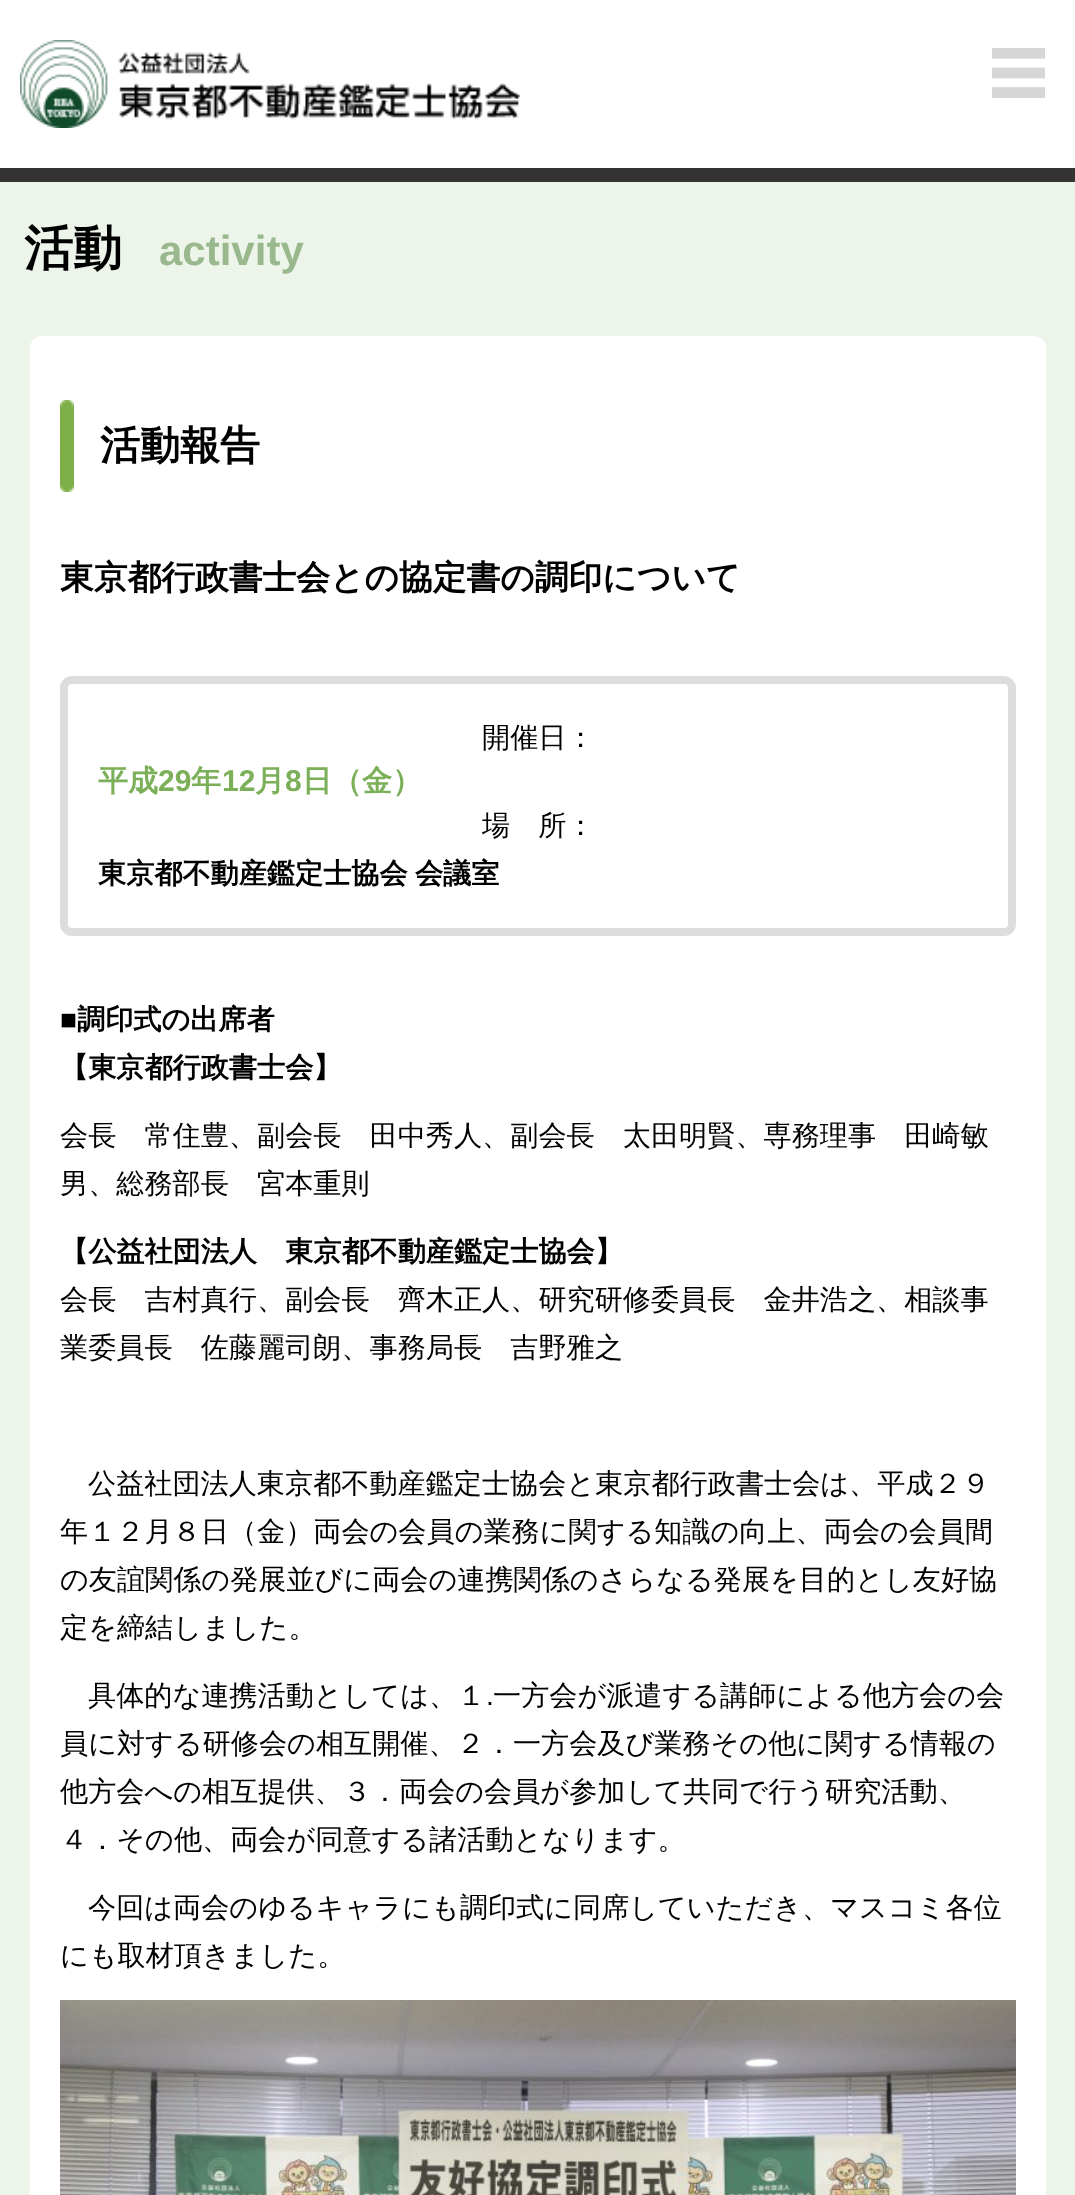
<!DOCTYPE html>
<meta charset="utf-8">
<style>body { margin: 0 } canvas { display: block }</style>
<canvas id="canvas" width="1075" height="2195"></canvas>
<script type="module">
  const canvas = document.getElementById("canvas");
  const g = canvas.getContext("2d");
  g.miterLimit = 4;
  g.fontKerning = "normal";
  function drawText(s, x, y, [font, color]) {
    g.font = font;
    g.fillStyle = color;
    g.fillText(s, x, y);
  }
  function fillBox(x, y, w, h, color) {
    g.fillStyle = color;
    g.fillRect(x, y, w, h);
  }
  function fillRounded(x, y, w, h, r, color) {
    g.fillStyle = color;
    g.beginPath();
    g.roundRect(x, y, w, h, r);
    g.fill();
  }
  async function drawPicture(src, x, y, w, h) {
    const img = new Image();
    img.src = src;
    await img.decode();
    g.drawImage(img, x, y, w, h);
  }

  const s1 = ["bold 49px WenQuanYi Zen Hei", "#000000"];
  const s2 = ["bold 42px Liberation Sans", "#99B88D"];
  const s3 = ["bold 40px WenQuanYi Zen Hei", "#000000"];
  const s4 = ["bold 33.75px WenQuanYi Zen Hei", "#000000"];
  const s5 = ["500 28.15px WenQuanYi Zen Hei", "#000000"];
  const s6 = ["bold 30px WenQuanYi Zen Hei", "#7BAF58"];
  const s7 = ["bold 30px Liberation Sans", "#7BAF58"];
  const s8 = ["bold 28.15px WenQuanYi Zen Hei", "#000000"];
  const s9 = ["bold 28.15px Liberation Sans", "#000000"];
  const s10 = ["28.15px Liberation Sans", "#000000"];

  fillBox(0, 0, 1075, 2195, "#EDF5EA");
  fillBox(0, 0, 1075, 168, "#FFFFFF");
  fillBox(0, 168, 1075, 14, "#333333");
  await drawPicture("pic1.png", 20, 40, 500, 88);
  await drawPicture("pic2.png", 992, 48, 53, 50);
  drawText("活動", 24, 265, s1);
  drawText("activity", 159, 265, s2);
  fillRounded(30, 336, 1016, 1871, 12, "#FFFFFF");
  await drawPicture("pic3.png", 60, 400, 14, 92);
  drawText("活動報告", 100, 459, s3);
  drawText("東京都行政書士会との協定書の調印について", 60, 589, s4);
  g.beginPath();
  g.roundRect(64, 680, 948, 252, 8);
  g.strokeStyle = "#DDDDDD";
  g.lineWidth = 8;
  g.stroke();
  drawText("開催日：", 482, 747, s5);
  drawText("平成", 98, 791, s6);
  drawText("29", 158, 791, s7);
  drawText("年", 191, 791, s6);
  drawText("12", 222, 791, s7);
  drawText("月", 255, 791, s6);
  drawText("8", 285, 791, s7);
  drawText("日（金）", 302, 791, s6);
  drawText("場　所：", 482, 835, s5);
  g.wordSpacing = "-1px";
  drawText("東京都不動産鑑定士協会 会議室", 98, 883, s8);
  g.wordSpacing = "0px";
  drawText("■", 60, 1029, s9);
  drawText("調印式の出席者", 77, 1029, s8);
  drawText("【東京都行政書士会】", 60, 1077, s8);
  drawText("会長　常住豊、副会長　田中秀人、副会長　太田明賢、専務理事　田崎敏", 60, 1145, s5);
  drawText("男、総務部長　宮本重則", 60, 1193, s5);
  drawText("【公益社団法人　東京都不動産鑑定士協会】", 60, 1261, s8);
  drawText("会長　吉村真行、副会長　齊木正人、研究研修委員長　金井浩之、相談事", 60, 1309, s5);
  drawText("業委員長　佐藤麗司朗、事務局長　吉野雅之", 60, 1357, s5);
  drawText("公益社団法人東京都不動産鑑定士協会と東京都行政書士会は、平成２９", 88, 1493, s5);
  drawText("年１２月８日（金）両会の会員の業務に関する知識の向上、両会の会員間", 60, 1541, s5);
  drawText("の友誼関係の発展並びに両会の連携関係のさらなる発展を目的とし友好協", 60, 1589, s5);
  drawText("定を締結しました。", 60, 1637, s5);
  drawText("具体的な連携活動としては、１", 88, 1705, s5);
  drawText(".", 486, 1705, s10);
  drawText("一方会が派遣する講師による他方会の会", 493, 1705, s5);
  drawText("員に対する研修会の相互開催、２．一方会及び業務その他に関する情報の", 60, 1753, s5);
  drawText("他方会への相互提供、３．両会の会員が参加して共同で行う研究活動、", 60, 1801, s5);
  drawText("４．その他、両会が同意する諸活動となります。", 60, 1849, s5);
  drawText("今回は両会のゆるキャラにも調印式に同席していただき、マスコミ各位", 88, 1917, s5);
  drawText("にも取材頂きました。", 60, 1965, s5);
  await drawPicture("pic4.png", 60, 2000, 956, 195);
</script>
